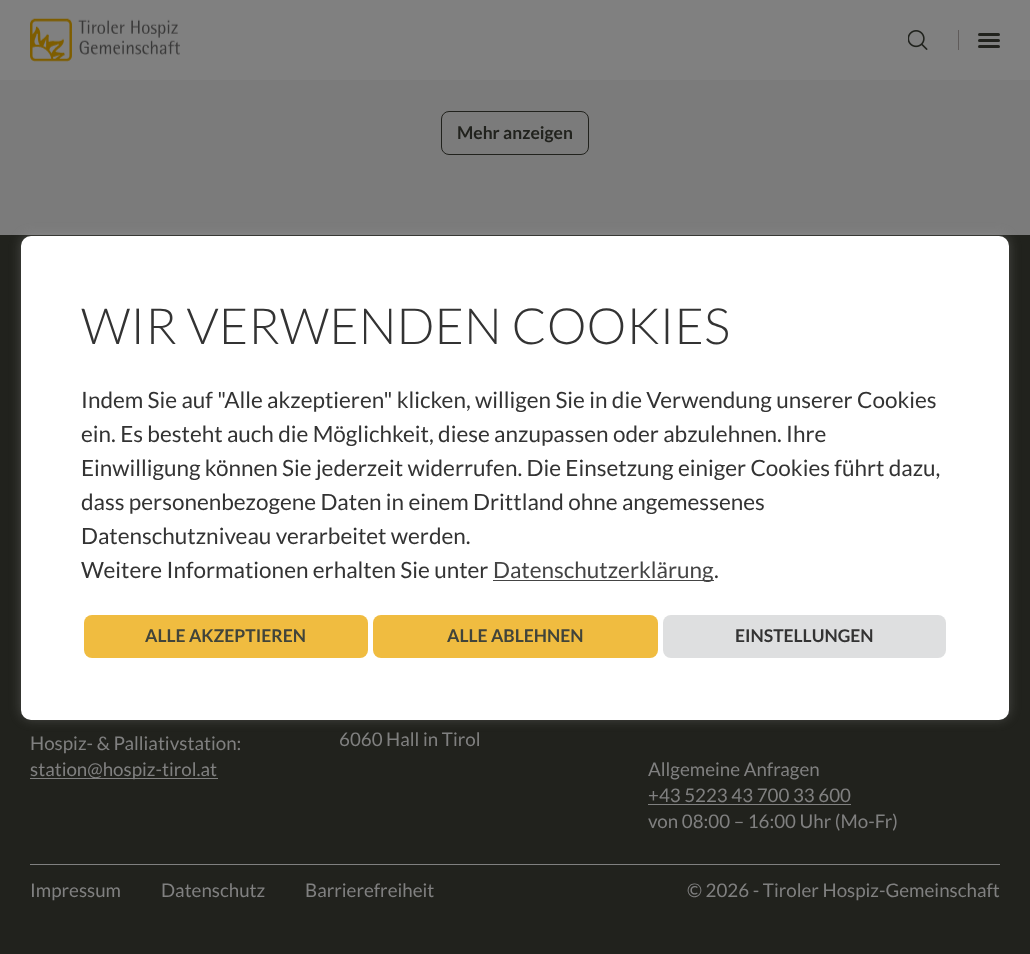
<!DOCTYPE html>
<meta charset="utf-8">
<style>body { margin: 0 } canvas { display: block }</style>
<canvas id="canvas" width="1030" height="954"></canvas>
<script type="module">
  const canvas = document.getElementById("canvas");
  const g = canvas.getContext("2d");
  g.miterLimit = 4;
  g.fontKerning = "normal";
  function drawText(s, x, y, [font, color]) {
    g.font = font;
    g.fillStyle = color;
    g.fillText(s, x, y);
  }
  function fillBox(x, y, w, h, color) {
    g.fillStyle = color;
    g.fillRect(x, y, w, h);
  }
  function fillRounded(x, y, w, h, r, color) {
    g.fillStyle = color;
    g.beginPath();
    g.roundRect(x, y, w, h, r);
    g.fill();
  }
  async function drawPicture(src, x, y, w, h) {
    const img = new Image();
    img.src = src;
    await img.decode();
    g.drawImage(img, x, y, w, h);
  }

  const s1 = ["bold 17.5px Lato", "#21221D"];
  const s2 = ["300 50px Lato", "#333333"];
  const s3 = ["22.5px Lato", "#333333"];
  const s4 = ["22.5px Lato", "#444444"];
  const s5 = ["bold 17.5px Lato", "#41443A"];
  const s6 = ["bold 17.5px Lato", "#333333"];
  const s7 = ["18.75px Lato", "#808080"];

  fillBox(0, 0, 1030, 954, "#7B7B7B");
  fillBox(0, 0, 1030, 80, "#808080");
  await drawPicture("pic1.png", 30, 18, 150, 44);
  await drawPicture("pic2.png", 908, 30, 20, 20);
  fillBox(958, 30, 1, 20, "#5F5B5A");
  fillRounded(978, 33, 22, 3, 1.5, "#21221D");
  fillRounded(978, 39, 22, 3, 1.5, "#21221D");
  fillRounded(978, 45, 22, 3, 1.5, "#21221D");
  g.beginPath();
  g.roundRect(441.5, 111.5, 147, 43, 7.5);
  g.strokeStyle = "#21221D";
  g.stroke();
  drawText("Mehr anzeigen", 457, 139, s1);
  fillBox(0, 235, 1030, 719, "#21221D");
  g.fillStyle = "rgba(172, 171, 171, 0.3)";
  g.filter = "blur(6px)";
  g.beginPath();
  g.roundRect(21, 235, 988, 484, 10);
  g.fill();
  g.filter = "none";
  fillRounded(21, 236, 988, 484, 10, "#FFFFFF");
  drawText("WIR VERWENDEN COOKIES", 81, 344, s2);
  drawText("Indem Sie auf \"Alle akzeptieren\" klicken, willigen Sie in die Verwendung unserer Cookies", 81, 408, s3);
  drawText("ein. Es besteht auch die Möglichkeit, diese anzupassen oder abzulehnen. Ihre", 81, 442, s3);
  drawText("Einwilligung können Sie jederzeit widerrufen. Die Einsetzung einiger Cookies führt dazu,", 81, 476, s3);
  drawText("dass personenbezogene Daten in einem Drittland ohne angemessenes", 81, 510, s3);
  drawText("Datenschutzniveau verarbeitet werden.", 81, 544, s3);
  drawText("Weitere Informationen erhalten Sie unter", 81, 578, s3);
  fillBox(493, 580, 221, 1, "#444444");
  drawText("Datenschutzerklärung", 493, 578, s4);
  drawText(".", 714, 578, s3);
  fillRounded(84, 615, 284, 43, 8, "#F0BC40");
  drawText("ALLE AKZEPTIEREN", 145, 642, s5);
  fillRounded(373, 615, 285, 43, 8, "#F0BC40");
  drawText("ALLE ABLEHNEN", 447, 642, s5);
  fillRounded(663, 615, 283, 43, 8, "#DEDFE0");
  drawText("EINSTELLUNGEN", 735, 642, s6);
  drawText("Hospiz- & Palliativstation:", 30, 750, s7);
  fillBox(30, 778, 188, 1, "#808080");
  drawText("station@hospiz-tirol.at", 30, 776, s7);
  drawText("6060 Hall in Tirol", 339, 746, s7);
  drawText("Allgemeine Anfragen", 648, 776, s7);
  drawText("+43 5223 43 700 33 600", 648, 802, s7);
  fillBox(648, 804, 203, 1, "#808080");
  drawText("von 08:00 – 16:00 Uhr (Mo-Fr)", 648, 828, s7);
  fillBox(30, 864, 970, 1, "#808080");
  drawText("Impressum", 30, 897, s7);
  drawText("Datenschutz", 161, 897, s7);
  drawText("Barrierefreiheit", 305, 897, s7);
  drawText("© 2026 - Tiroler Hospiz-Gemeinschaft", 687, 897, s7);
</script>
